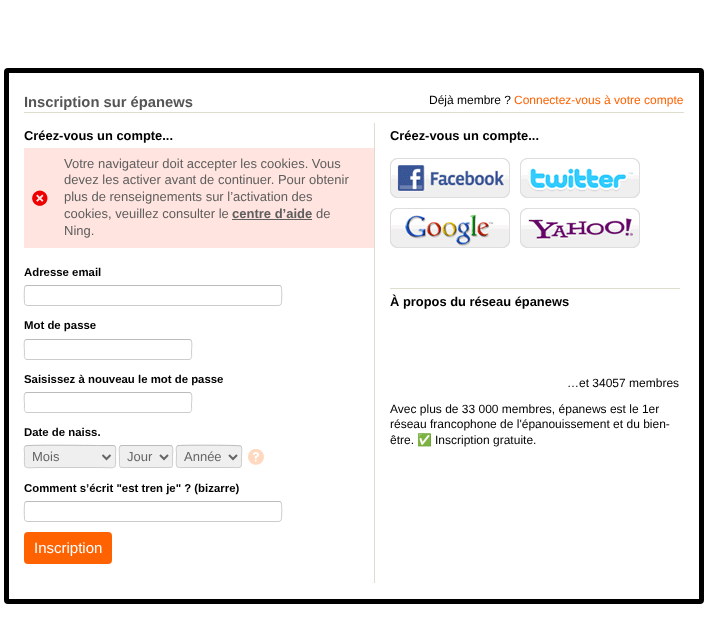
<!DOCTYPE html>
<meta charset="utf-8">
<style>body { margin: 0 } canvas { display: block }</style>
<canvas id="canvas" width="707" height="620"></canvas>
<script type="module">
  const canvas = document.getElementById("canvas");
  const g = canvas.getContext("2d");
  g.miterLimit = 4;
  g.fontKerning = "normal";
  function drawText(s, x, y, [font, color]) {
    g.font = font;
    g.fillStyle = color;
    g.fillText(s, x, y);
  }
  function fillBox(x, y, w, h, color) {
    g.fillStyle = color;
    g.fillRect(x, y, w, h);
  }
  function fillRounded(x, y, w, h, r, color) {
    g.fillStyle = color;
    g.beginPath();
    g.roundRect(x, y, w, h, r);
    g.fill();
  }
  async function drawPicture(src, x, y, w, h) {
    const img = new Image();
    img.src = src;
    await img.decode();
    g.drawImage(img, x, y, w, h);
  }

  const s1 = ["bold 14.75px Liberation Sans", "#555555"];
  const s2 = ["12px Liberation Sans", "#000000"];
  const s3 = ["12px Liberation Sans", "#FF6200"];
  const s4 = ["bold 12.9px Liberation Sans", "#000000"];
  const s5 = ["13px Liberation Sans", "#5E5E5E"];
  const s6 = ["bold 13px Liberation Sans", "#5E5E5E"];
  const s7 = ["bold 11.4px Liberation Sans", "#000000"];
  const s8 = ["13px Liberation Sans", "#666666"];
  const s9 = ["15px Liberation Sans", "#FFFFFF"];
  const s10 = ["12px Noto Color Emoji", "#000000"];

  fillBox(0, 0, 707, 620, "#FFFFFF");
  g.beginPath();
  g.roundRect(6.5, 70.5, 695, 531, 1.5);
  g.strokeStyle = "#000000";
  g.lineWidth = 5;
  g.stroke();
  fillBox(24, 112, 660, 1, "#DFDDCB");
  drawText("Inscription sur épanews", 24, 107, s1);
  drawText("Déjà membre ?", 429, 104, s2);
  drawText("Connectez-vous à votre compte", 514, 104, s3);
  fillBox(374, 123, 1, 460, "#DFDDCB");
  drawText("Créez-vous un compte...", 24, 140, s4);
  fillBox(24, 148, 350, 100, "#FFE4DF");
  await drawPicture("pic1.png", 32, 190, 16, 16);
  drawText("Votre navigateur doit accepter les cookies. Vous", 64, 168, s5);
  drawText("devez les activer avant de continuer. Pour obtenir", 64, 184, s5);
  drawText("plus de renseignements sur l’activation des", 64, 201, s5);
  drawText("cookies, veuillez consulter le", 64, 218, s5);
  drawText("centre d’aide", 232, 218, s6);
  fillBox(232, 219, 80, 1, "#5E5E5E");
  drawText("de", 316, 218, s5);
  drawText("Ning.", 64, 235, s5);
  drawText("Adresse email", 24, 276, s7);
  g.beginPath();
  g.moveTo(25, 286);
  g.lineTo(27, 285.5);
  g.lineTo(279, 285.5);
  g.lineTo(281, 286);
  g.strokeStyle = "#BBBBBB";
  g.lineWidth = 1;
  g.stroke();
  g.beginPath();
  g.moveTo(281, 286);
  g.bezierCurveTo(282, 287.5, 282, 303, 281, 304.5);
  g.lineTo(279, 305.5);
  g.lineTo(27, 305.5);
  g.lineTo(25, 304.5);
  g.bezierCurveTo(24, 303, 24, 287.5, 25, 286);
  g.strokeStyle = "#CCCCCC";
  g.stroke();
  drawText("Mot de passe", 24, 329, s7);
  g.beginPath();
  g.moveTo(25, 340);
  g.lineTo(27, 339.5);
  g.lineTo(189, 339.5);
  g.lineTo(191, 340);
  g.strokeStyle = "#BBBBBB";
  g.stroke();
  g.beginPath();
  g.moveTo(191, 340);
  g.bezierCurveTo(192.5, 342, 191.5, 349.5, 191.5, 352);
  g.bezierCurveTo(191.5, 354, 192.5, 359.5, 189, 359.5);
  g.lineTo(27, 359.5);
  g.bezierCurveTo(23.5, 359.5, 24.5, 354, 24.5, 352);
  g.bezierCurveTo(24.5, 349.5, 23.5, 342, 25, 340);
  g.strokeStyle = "#CCCCCC";
  g.stroke();
  drawText("Saisissez à nouveau le mot de passe", 24, 383, s7);
  g.beginPath();
  g.moveTo(25, 393);
  g.lineTo(27, 392.5);
  g.lineTo(189, 392.5);
  g.lineTo(191, 393);
  g.strokeStyle = "#BBBBBB";
  g.stroke();
  g.beginPath();
  g.moveTo(191, 393);
  g.bezierCurveTo(192.5, 395, 191.5, 402.5, 191.5, 405);
  g.bezierCurveTo(191.5, 407, 192.5, 412.5, 189, 412.5);
  g.lineTo(27, 412.5);
  g.bezierCurveTo(23.5, 412.5, 24.5, 407, 24.5, 405);
  g.bezierCurveTo(24.5, 402.5, 23.5, 395, 25, 393);
  g.strokeStyle = "#CCCCCC";
  g.stroke();
  drawText("Date de naiss.", 24, 436, s7);
  fillRounded(24, 445, 92, 23, 3, "#EFEFEF");
  g.beginPath();
  g.moveTo(25, 446);
  g.lineTo(25.5, 446);
  g.bezierCurveTo(27.5, 444.5, 91, 445.5, 98.5, 445.5);
  g.lineTo(113, 445.5);
  g.lineTo(115, 446);
  g.strokeStyle = "#BBBBBB";
  g.stroke();
  g.beginPath();
  g.moveTo(115, 446);
  g.bezierCurveTo(116.5, 448, 115.5, 451.5, 115.5, 453.5);
  g.bezierCurveTo(115.5, 471, 118, 467.5, 98.5, 467.5);
  g.lineTo(41.5, 467.5);
  g.bezierCurveTo(22, 467.5, 24.5, 471, 24.5, 453.5);
  g.bezierCurveTo(24.5, 451.5, 23.5, 448, 25, 446);
  g.strokeStyle = "#CCCCCC";
  g.stroke();
  g.beginPath();
  g.moveTo(102.5, 455);
  g.lineTo(106.5, 459);
  g.lineTo(110.5, 455);
  g.strokeStyle = "#666666";
  g.lineWidth = 2;
  g.stroke();
  drawText("Mois", 32, 461, s8);
  fillRounded(119, 445, 54, 23, 3, "#EFEFEF");
  g.beginPath();
  g.moveTo(120, 446);
  g.lineTo(122, 445.5);
  g.lineTo(170, 445.5);
  g.lineTo(172, 446);
  g.strokeStyle = "#BBBBBB";
  g.lineWidth = 1;
  g.stroke();
  g.beginPath();
  g.moveTo(172, 446);
  g.bezierCurveTo(173.5, 448, 172.5, 454.5, 172.5, 456.5);
  g.bezierCurveTo(172.5, 469, 174.5, 467.5, 162, 467.5);
  g.lineTo(130, 467.5);
  g.bezierCurveTo(117.5, 467.5, 119.5, 469, 119.5, 456.5);
  g.bezierCurveTo(119.5, 454.5, 118.5, 448, 120, 446);
  g.strokeStyle = "#CCCCCC";
  g.stroke();
  g.beginPath();
  g.moveTo(160, 455);
  g.lineTo(164, 459);
  g.lineTo(168, 455);
  g.strokeStyle = "#666666";
  g.lineWidth = 2;
  g.stroke();
  drawText("Jour", 127, 461, s8);
  fillRounded(176, 445, 66, 23, 3, "#EFEFEF");
  g.beginPath();
  g.moveTo(177, 446);
  g.lineTo(179, 445.5);
  g.bezierCurveTo(184, 445, 239.5, 445, 240.5, 446);
  g.lineTo(241, 446);
  g.strokeStyle = "#BBBBBB";
  g.lineWidth = 1;
  g.stroke();
  g.beginPath();
  g.moveTo(241, 446);
  g.bezierCurveTo(242.5, 448, 241.5, 454.5, 241.5, 456.5);
  g.bezierCurveTo(241.5, 469.5, 243, 467.5, 229, 467.5);
  g.lineTo(189, 467.5);
  g.bezierCurveTo(173.5, 467.5, 176.5, 469.5, 176.5, 453.5);
  g.bezierCurveTo(176.5, 451.5, 175.5, 448, 177, 446);
  g.strokeStyle = "#CCCCCC";
  g.stroke();
  g.beginPath();
  g.moveTo(229, 455);
  g.lineTo(233, 459);
  g.lineTo(237, 455);
  g.strokeStyle = "#666666";
  g.lineWidth = 2;
  g.stroke();
  drawText("Année", 184, 461, s8);
  await drawPicture("pic2.png", 248, 449, 16, 16);
  drawText("Comment s’écrit \"est tren je\" ? (bizarre)", 24, 492, s7);
  g.beginPath();
  g.moveTo(25, 502);
  g.lineTo(27, 501.5);
  g.lineTo(279, 501.5);
  g.lineTo(281, 502);
  g.strokeStyle = "#BBBBBB";
  g.lineWidth = 1;
  g.stroke();
  g.beginPath();
  g.moveTo(281, 502);
  g.bezierCurveTo(282, 503.5, 282, 519, 281, 520.5);
  g.lineTo(279, 521.5);
  g.lineTo(27, 521.5);
  g.lineTo(25, 520.5);
  g.bezierCurveTo(24, 519, 24, 503.5, 25, 502);
  g.strokeStyle = "#CCCCCC";
  g.stroke();
  fillRounded(24, 532, 88, 32, 4, "#FF6200");
  drawText("Inscription", 34, 553, s9);
  drawText("Créez-vous un compte...", 390, 140, s4);
  fillBox(390, 288, 290, 1, "#DFDDCB");
  await drawPicture("pic3.png", 390, 158, 120, 40);
  await drawPicture("pic4.png", 520, 158, 120, 40);
  await drawPicture("pic5.png", 390, 208, 120, 40);
  await drawPicture("pic6.png", 520, 208, 120, 40);
  drawText("À propos du réseau épanews", 390, 306, s4);
  drawText("…et 34057 membres", 567, 387, s2);
  drawText("Avec plus de 33 000 membres, épanews est le 1er", 390, 413, s2);
  drawText("réseau francophone de l'épanouissement et du bien-", 390, 428, s2);
  drawText("être.", 390, 444, s2);
  drawText("✅", 417, 444, s10);
  drawText("Inscription gratuite.", 435, 444, s2);
</script>
